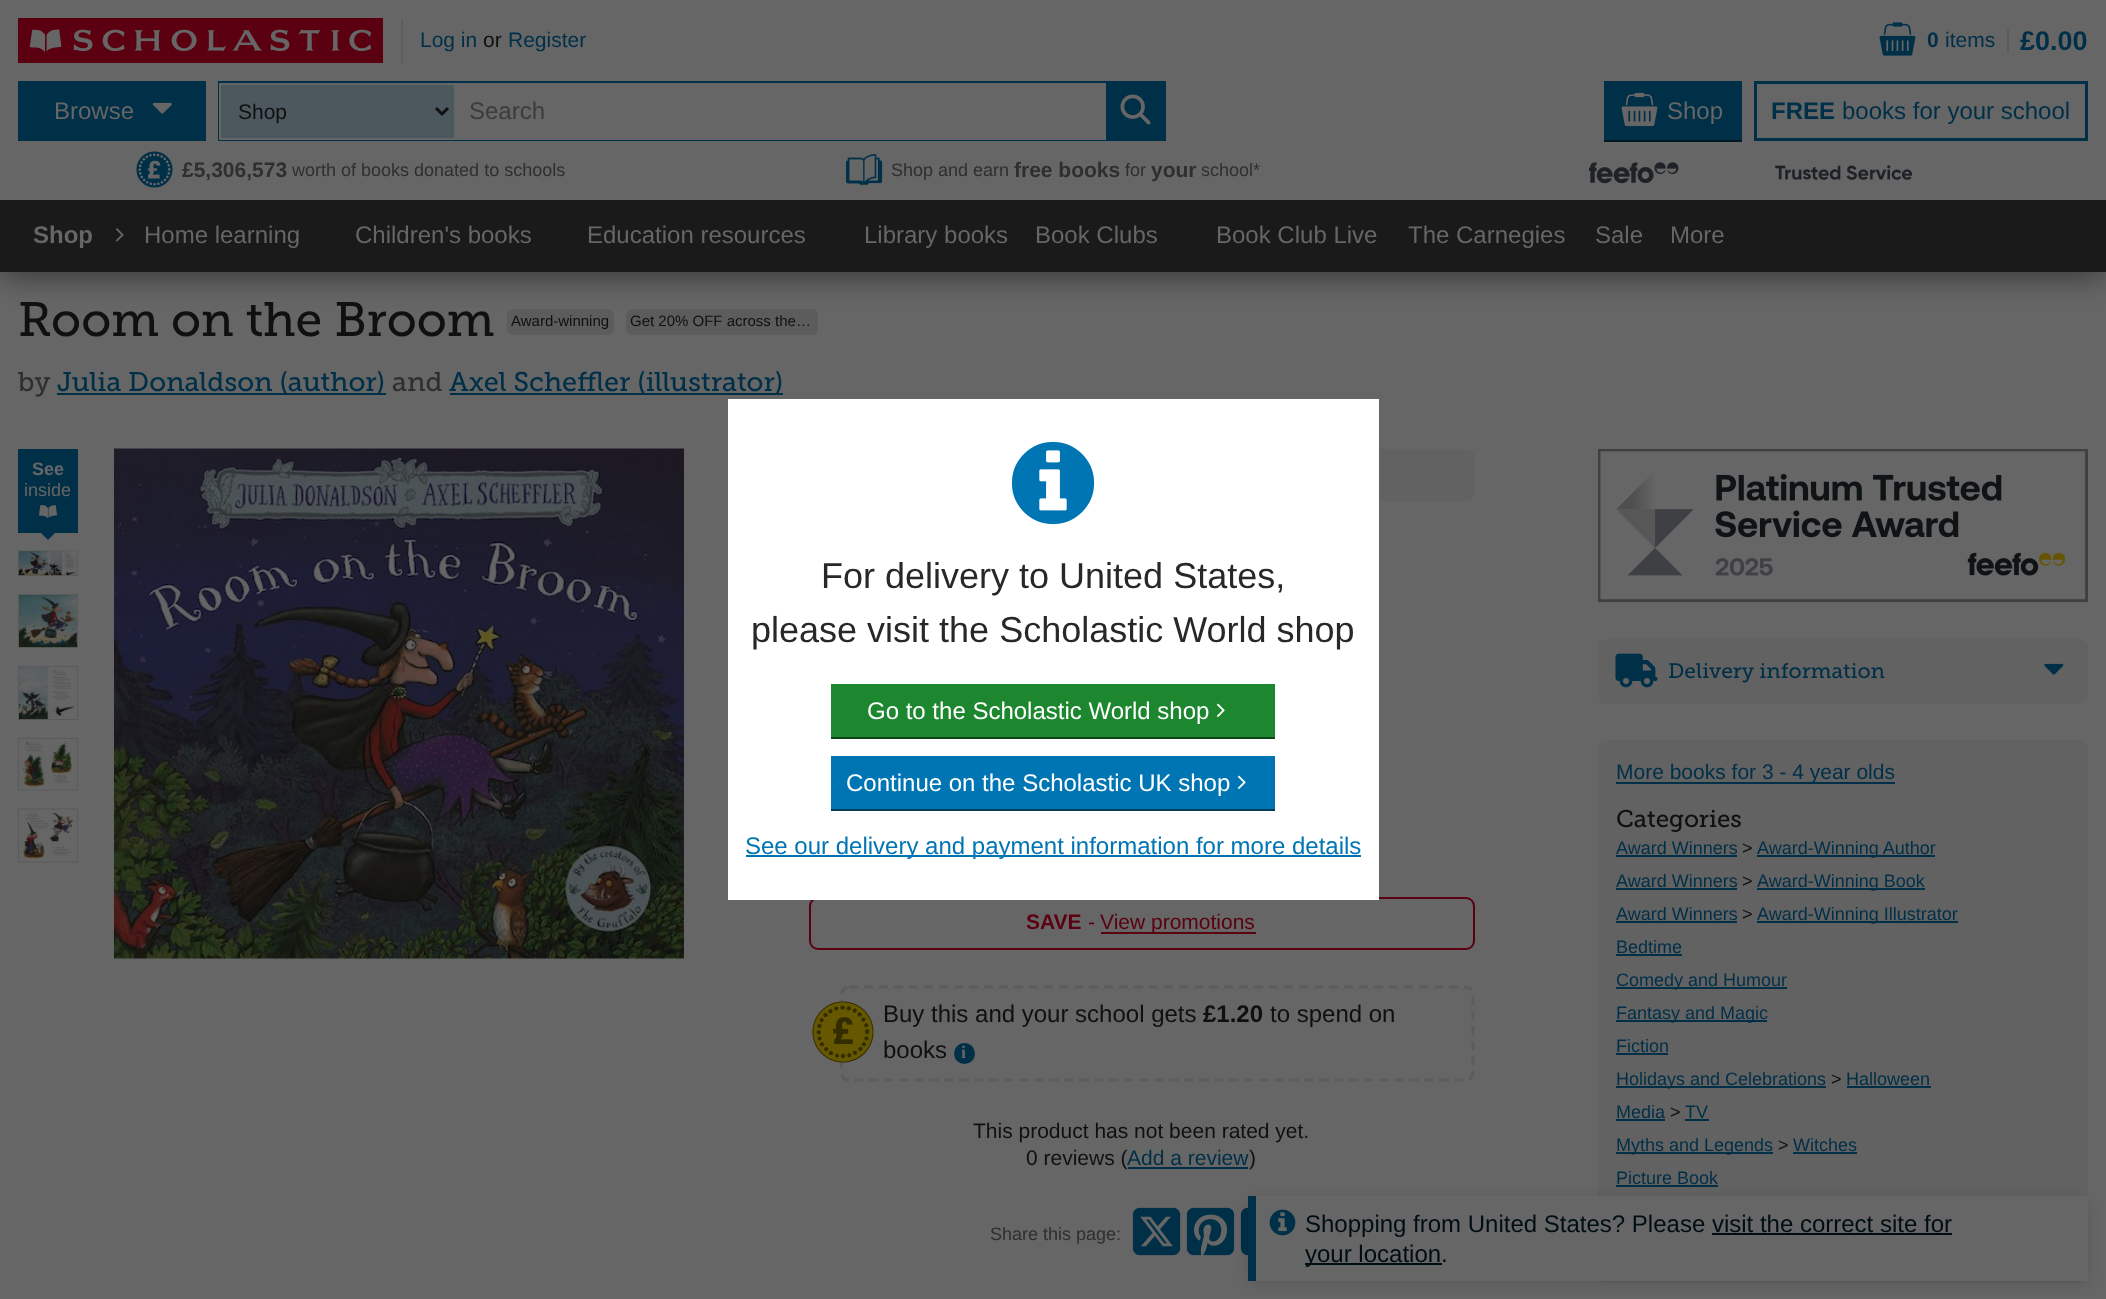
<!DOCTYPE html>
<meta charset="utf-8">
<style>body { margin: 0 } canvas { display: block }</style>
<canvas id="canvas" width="2106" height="1299"></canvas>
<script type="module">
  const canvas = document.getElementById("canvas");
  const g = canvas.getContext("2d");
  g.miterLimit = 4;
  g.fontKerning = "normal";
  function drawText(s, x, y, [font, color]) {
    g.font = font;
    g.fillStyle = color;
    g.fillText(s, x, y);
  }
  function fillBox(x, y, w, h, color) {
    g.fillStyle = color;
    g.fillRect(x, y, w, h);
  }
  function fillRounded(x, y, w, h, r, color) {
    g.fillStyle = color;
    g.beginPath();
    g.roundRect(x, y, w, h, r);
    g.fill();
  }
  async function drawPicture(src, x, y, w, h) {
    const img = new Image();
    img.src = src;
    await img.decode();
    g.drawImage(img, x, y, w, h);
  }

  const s1 = ["21px Liberation Sans", "#002F48"];
  const s2 = ["21px Liberation Sans", "#101010"];
  const s3 = ["bold 21px Liberation Sans", "#002F48"];
  const s4 = ["bold 27px Liberation Sans", "#002F48"];
  const s5 = ["24px Liberation Sans", "#666666"];
  const s6 = ["24px Liberation Sans", "#3C3C3C"];
  const s7 = ["bold 24px Liberation Sans", "#002F48"];
  const s8 = ["24px Liberation Sans", "#002F48"];
  const s9 = ["bold 21px Liberation Sans", "#2F2F2F"];
  const s10 = ["18px Liberation Sans", "#2F2F2F"];
  const s11 = ["bold 24px Liberation Sans", "#666666"];
  const s12 = ["24px Liberation Sans", "#000E14"];
  const s13 = ["48px Museo Slab", "#101010"];
  const s14 = ["15px Liberation Sans", "#101010"];
  const s15 = ["27px Museo Slab", "#2F2F2F"];
  const s16 = ["27px Museo Slab", "#002F48"];
  const s17 = ["bold 18px Liberation Sans", "#666666"];
  const s18 = ["18px Liberation Sans", "#666666"];
  const s19 = ["bold 21px Liberation Sans", "#5B0011"];
  const s20 = ["21px Liberation Sans", "#5B0011"];
  const s21 = ["24px Liberation Sans", "#101010"];
  const s22 = ["bold 24px Liberation Sans", "#101010"];
  const s23 = ["bold 18px Liberation Serif", "#666666"];
  const s24 = ["21px Museo Slab", "#002F48"];
  const s25 = ["24px Museo Slab", "#101010"];
  const s26 = ["18px Liberation Sans", "#002F48"];
  const s27 = ["18px Liberation Sans", "#101010"];
  const s28 = ["36px Liberation Sans", "#282828"];
  const s29 = ["24px Liberation Sans", "#FFFFFF"];
  const s30 = ["24px Liberation Sans", "#0075B3"];

  fillBox(0, 0, 2106, 1299, "#666666");
  await drawPicture("pic1.png", 18, 18, 365, 45);
  fillBox(401, 20, 2, 43, "#5C5C5C");
  drawText("Log in", 420, 47, s1);
  drawText("or", 483, 47, s2);
  drawText("Register", 508, 47, s1);
  await drawPicture("pic2.png", 1879, 22, 37, 34);
  fillBox(2007, 29, 2, 24, "#5C5C5C");
  drawText("0", 1927, 47, s3);
  drawText("items", 1945, 47, s1);
  drawText("£0.00", 2020, 50, s4);
  fillBox(18, 81, 188, 60, "#002F48");
  drawText("Browse", 54, 119, s5);
  await drawPicture("pic3.png", 152, 102, 20, 12);
  g.strokeStyle = "#002F48";
  g.lineWidth = 2;
  g.strokeRect(219, 82, 946, 58);
  g.fillStyle = "#4C585E";
  g.beginPath();
  g.rect(220, 84, 235, 55);
  g.fill();
  g.strokeStyle = "#666666";
  g.stroke();
  g.beginPath();
  g.moveTo(436, 108);
  g.lineTo(442, 114);
  g.lineTo(448, 108);
  g.strokeStyle = "#101010";
  g.lineWidth = 3;
  g.stroke();
  drawText("Shop", 238, 119, s2);
  g.strokeStyle = "#666666";
  g.lineWidth = 2;
  g.strokeRect(457, 84, 706, 55);
  drawText("Search", 469, 119, s6);
  fillBox(1106, 83, 58, 57, "#002F48");
  await drawPicture("pic4.png", 1120, 94, 31, 31);
  fillBox(1604, 81, 138, 59, "#002F48");
  fillBox(1604, 140, 138, 2, "#001824");
  await drawPicture("pic5.png", 1621, 92, 37, 35);
  drawText("Shop", 1667, 119, s5);
  g.strokeStyle = "#002F48";
  g.lineWidth = 3;
  g.strokeRect(1755.5, 82.5, 331, 57);
  drawText("FREE", 1771, 119, s7);
  drawText("books for your school", 1842, 119, s8);
  await drawPicture("pic6.png", 136, 151, 37, 37);
  drawText("£5,306,573", 182, 177, s9);
  drawText("worth of books donated to schools", 292, 176, s10);
  await drawPicture("pic7.png", 846, 154, 37, 31);
  drawText("Shop and earn", 891, 176, s10);
  drawText("free books", 1014, 177, s9);
  drawText("for", 1125, 176, s10);
  drawText("your", 1151, 177, s9);
  drawText("school*", 1201, 176, s10);
  await drawPicture("pic8.png", 1589, 162, 324, 22);
  fillRounded(507, 309, 107, 26, 6, "#5C5C5C");
  fillRounded(626, 309, 192, 26, 6, "#5C5C5C");
  g.fillStyle = "rgba(0, 0, 0, 0.8)";
  g.filter = "blur(15px)";
  g.beginPath();
  g.roundRect(0, 257, 2106, 15, 7.5);
  g.fill();
  g.filter = "none";
  fillBox(0, 200, 2106, 72, "#1A1A1A");
  drawText("Shop", 33, 243, s11);
  await drawPicture("pic9.png", 115, 228, 9, 14);
  drawText("Home learning", 144, 243, s5);
  drawText("Children's books", 355, 243, s5);
  drawText("Education resources", 587, 243, s5);
  drawText("Library books", 864, 243, s5);
  drawText("Book Clubs", 1035, 243, s5);
  drawText("Book Club Live", 1216, 243, s5);
  drawText("The Carnegies", 1408, 243, s5);
  drawText("Sale", 1595, 243, s5);
  drawText("More", 1670, 243, s5);
  await drawPicture("pic20.png", 1186, 1207, 49, 49);
  await drawPicture("pic21.png", 1240, 1207, 8, 49);
  fillRounded(1598, 740, 490, 543, 9, "#626262");
  fillBox(1616, 1185, 102, 2, "#002F48");
  g.fillStyle = "rgba(0, 0, 0, 0.2)";
  g.filter = "blur(7.5px)";
  g.beginPath();
  g.rect(1251, 1202, 834, 79);
  g.fill();
  g.filter = "none";
  fillBox(1256, 1196, 832, 85, "#666666");
  fillBox(1248, 1196, 8, 85, "#002F48");
  await drawPicture("pic10.png", 1269, 1209, 27, 27);
  drawText("Shopping from United States? Please visit the correct site for", 1305, 1232, s12);
  fillBox(1305, 1263, 137, 2, "#000E14");
  drawText("your location.", 1305, 1262, s12);
  fillBox(1712, 1233, 240, 2, "#000E14");
  drawText("Room on the Broom", 18, 336, s13);
  drawText("Award-winning", 511, 326, s14);
  drawText("Get 20% OFF across the…", 630, 326, s14);
  drawText("by", 18, 391, s15);
  fillBox(57, 393, 329, 2, "#002F48");
  drawText("Julia Donaldson (author)", 57, 391, s16);
  drawText("and", 392, 391, s15);
  fillBox(450, 393, 333, 2, "#002F48");
  drawText("Axel Scheffler (illustrator)", 449, 391, s16);
  fillBox(18, 449, 60, 84, "#002F48");
  drawText("See", 32, 475, s17);
  drawText("inside", 24, 496, s18);
  await drawPicture("pic11.png", 39, 505, 18, 13);
  g.fillStyle = "#002F48";
  g.beginPath();
  g.moveTo(40.5, 532.5);
  g.lineTo(55.5, 532.5);
  g.lineTo(48, 540);
  g.closePath();
  g.fill();
  await drawPicture("pic12.png", 18, 550, 60, 26);
  await drawPicture("pic13.png", 18, 594, 60, 54);
  await drawPicture("pic14.png", 18, 666, 60, 54);
  await drawPicture("pic15.png", 18, 738, 60, 53);
  await drawPicture("pic16.png", 18, 808, 60, 55);
  await drawPicture("pic17.png", 114, 448, 570, 511);
  fillRounded(809, 449, 666, 52, 9, "#626262");
  g.beginPath();
  g.roundRect(810, 898, 664, 51, 8);
  g.strokeStyle = "#5B0011";
  g.lineWidth = 2;
  g.stroke();
  drawText("SAVE", 1026, 929, s19);
  drawText("-", 1088, 929, s20);
  fillBox(1101, 932, 155, 2, "#5B0011");
  drawText("View promotions", 1100, 929, s20);
  g.beginPath();
  g.moveTo(849, 987);
  g.lineTo(1465.5, 987);
  g.bezierCurveTo(1469.5, 987, 1473, 990.5, 1473, 994.5);
  g.lineTo(1473, 1072.5);
  g.bezierCurveTo(1473, 1076.5, 1469.5, 1080, 1465.5, 1080);
  g.lineTo(849, 1080);
  g.bezierCurveTo(845, 1080, 841.5, 1076.5, 841.5, 1072.5);
  g.lineTo(841.5, 994.5);
  g.bezierCurveTo(841.5, 990.5, 845, 987, 849, 987);
  g.closePath();
  g.strokeStyle = "#5C5C5C";
  g.lineWidth = 3;
  g.setLineDash([9, 6]);
  g.stroke();
  await drawPicture("pic18.png", 812, 1001, 62, 62);
  drawText("Buy this and your school gets", 883, 1022, s21);
  drawText("£1.20", 1203, 1022, s22);
  drawText("to spend on", 1270, 1022, s21);
  drawText("books", 883, 1058, s21);
  g.fillStyle = "#002F48";
  g.beginPath();
  g.arc(964.5, 1053.5, 10.5, 0, Math.PI * 2);
  g.fill();
  drawText("i", 961, 1058, s23);
  drawText("This product has not been rated yet.", 973, 1138, s2);
  drawText("0 reviews (", 1026, 1165, s2);
  drawText("Add a review", 1127, 1165, s1);
  fillBox(1128, 1167, 120, 2, "#002F48");
  drawText(")", 1249, 1165, s2);
  drawText("Share this page:", 990, 1240, s10);
  await drawPicture("pic19.png", 1132, 1207, 49, 49);
  await drawPicture("pic22.png", 1598, 449, 490, 154);
  fillRounded(1598, 639, 490, 65, 9, "#626262");
  await drawPicture("pic23.png", 1615, 653, 43, 35);
  drawText("Delivery information", 1668, 678, s24);
  await drawPicture("pic24.png", 2044, 663, 20, 12);
  fillBox(1616, 782, 279, 2, "#002F48");
  drawText("More books for 3 - 4 year olds", 1616, 779, s1);
  drawText("Categories", 1616, 827, s25);
  drawText("Award Winners", 1616, 854, s26);
  fillBox(1616, 855, 121, 2, "#002F48");
  drawText(">", 1742, 854, s27);
  fillBox(1757, 855, 178, 2, "#002F48");
  drawText("Award-Winning Author", 1757, 854, s26);
  drawText("Award Winners", 1616, 887, s26);
  fillBox(1616, 888, 121, 2, "#002F48");
  drawText(">", 1742, 887, s27);
  fillBox(1757, 888, 168, 2, "#002F48");
  drawText("Award-Winning Book", 1757, 887, s26);
  drawText("Award Winners", 1616, 920, s26);
  fillBox(1616, 921, 121, 2, "#002F48");
  drawText(">", 1742, 920, s27);
  fillBox(1757, 921, 201, 2, "#002F48");
  drawText("Award-Winning Illustrator", 1757, 920, s26);
  drawText("Bedtime", 1616, 953, s26);
  fillBox(1616, 954, 66, 2, "#002F48");
  fillBox(1616, 987, 171, 2, "#002F48");
  drawText("Comedy and Humour", 1616, 986, s26);
  fillBox(1616, 1020, 151, 2, "#002F48");
  drawText("Fantasy and Magic", 1616, 1019, s26);
  drawText("Fiction", 1616, 1052, s26);
  fillBox(1616, 1053, 52, 2, "#002F48");
  fillBox(1616, 1086, 210, 2, "#002F48");
  drawText("Holidays and Celebrations", 1616, 1085, s26);
  drawText(">", 1831, 1085, s27);
  drawText("Halloween", 1846, 1085, s26);
  fillBox(1847, 1086, 84, 2, "#002F48");
  drawText("Media", 1616, 1118, s26);
  fillBox(1616, 1119, 49, 2, "#002F48");
  drawText(">", 1670, 1118, s27);
  drawText("TV", 1685, 1118, s26);
  fillBox(1685, 1119, 24, 2, "#002F48");
  fillBox(1616, 1152, 157, 2, "#002F48");
  drawText("Myths and Legends", 1616, 1151, s26);
  drawText(">", 1778, 1151, s27);
  drawText("Witches", 1793, 1151, s26);
  fillBox(1793, 1152, 64, 2, "#002F48");
  drawText("Picture Book", 1616, 1184, s26);
  fillBox(728, 399, 651, 501, "#FFFFFF");
  await drawPicture("pic25.png", 1011, 441, 84, 84);
  drawText("For delivery to United States,", 821, 588, s28);
  drawText("please visit the Scholastic World shop", 751, 642, s28);
  fillBox(831, 684, 444, 53, "#1D8730");
  fillBox(831, 737, 444, 2, "#0F4418");
  drawText("Go to the Scholastic World shop", 867, 719, s29);
  await drawPicture("pic26.png", 1216, 703, 9, 14);
  fillBox(831, 756, 444, 53, "#0075B3");
  fillBox(831, 809, 444, 2, "#003B5A");
  drawText("Continue on the Scholastic UK shop", 846, 791, s29);
  await drawPicture("pic27.png", 1237, 775, 9, 14);
  fillBox(746, 855, 615, 2, "#0075B3");
  drawText("See our delivery and payment information for more details", 745, 854, s30);
</script>
